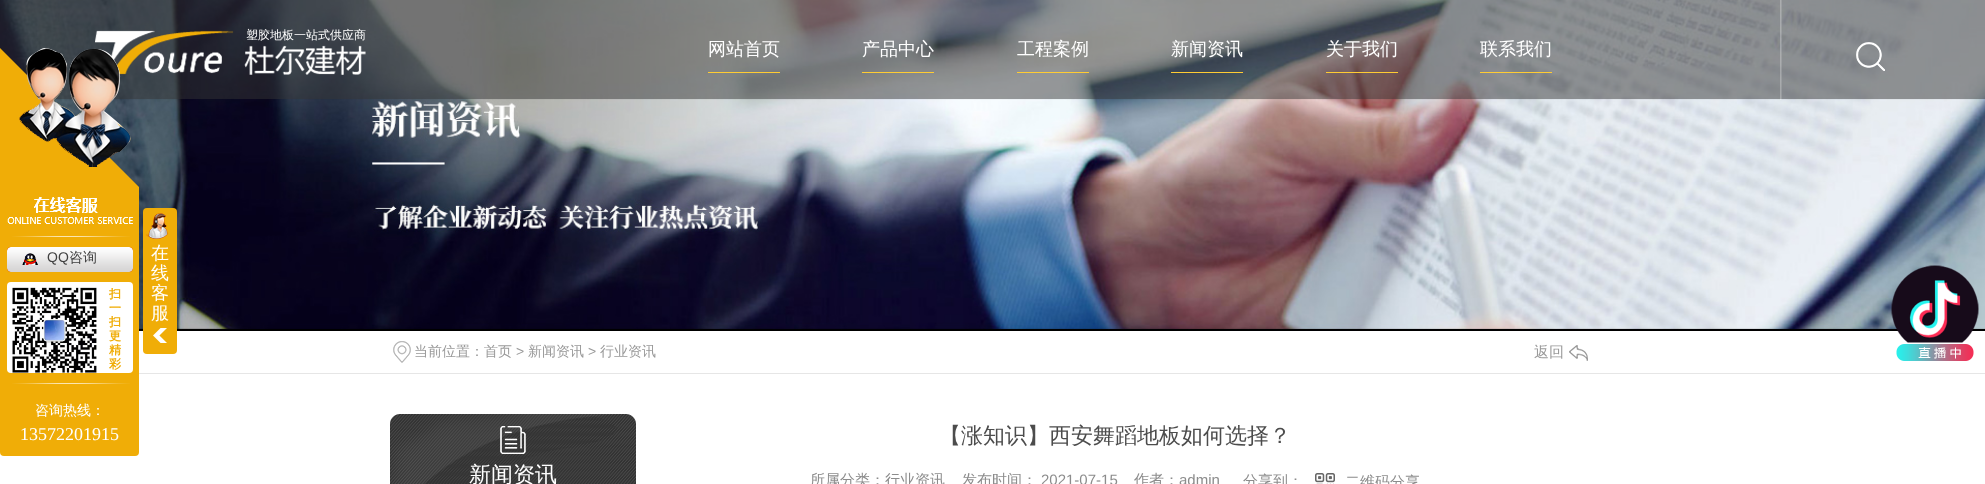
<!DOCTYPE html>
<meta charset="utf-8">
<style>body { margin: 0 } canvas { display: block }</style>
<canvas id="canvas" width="1985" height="484"></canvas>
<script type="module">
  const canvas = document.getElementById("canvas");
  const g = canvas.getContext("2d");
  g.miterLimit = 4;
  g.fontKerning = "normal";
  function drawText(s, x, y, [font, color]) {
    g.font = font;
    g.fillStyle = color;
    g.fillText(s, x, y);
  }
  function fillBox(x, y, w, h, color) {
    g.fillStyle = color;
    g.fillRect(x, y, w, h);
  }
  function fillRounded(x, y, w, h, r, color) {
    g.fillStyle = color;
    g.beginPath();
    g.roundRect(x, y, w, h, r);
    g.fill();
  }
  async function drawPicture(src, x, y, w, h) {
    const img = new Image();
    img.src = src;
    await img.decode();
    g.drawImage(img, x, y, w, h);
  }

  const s1 = ["500 12px WenQuanYi Zen Hei", "#FFFFFF"];
  const s2 = ["500 18px WenQuanYi Zen Hei", "#FFFFFF"];
  const s3 = ["14px Liberation Sans", "#404040"];
  const s4 = ["500 14px WenQuanYi Zen Hei", "#404040"];
  const s5 = ["bold 12px WenQuanYi Zen Hei", "#F0AD07"];
  const s6 = ["500 14px WenQuanYi Zen Hei", "#FFFFFF"];
  const s7 = ["18px Liberation Serif", "#FFFFFF"];
  const s8 = ["500 14px WenQuanYi Zen Hei", "#999999"];
  const s9 = ["14px Liberation Sans", "#999999"];
  const s10 = ["500 15px WenQuanYi Zen Hei", "#999999"];
  const s11 = ["500 22px WenQuanYi Zen Hei", "#FFFFFF"];
  const s12 = ["500 22px WenQuanYi Zen Hei", "#4C4C4C"];
  const s13 = ["500 15px WenQuanYi Zen Hei", "#8C8C8C"];
  const s14 = ["15px Liberation Sans", "#8C8C8C"];

  fillBox(0, 0, 1985, 484, "#FFFFFF");
  await drawPicture("pic1.png", 0, 0, 1985, 331);
  await drawPicture("pic2.png", 0, 0, 1985, 100);
  await drawPicture("pic3.png", 95, 30, 271, 45);
  drawText("塑胶地板一站式供应商", 246, 39, s1);
  fillBox(708, 72, 72, 1, "#FFCC33");
  drawText("网站首页", 708, 55, s2);
  fillBox(862, 72, 72, 1, "#FFCC33");
  drawText("产品中心", 862, 55, s2);
  fillBox(1017, 72, 72, 1, "#FFCC33");
  drawText("工程案例", 1017, 55, s2);
  fillBox(1171, 72, 72, 1, "#FFCC33");
  drawText("新闻资讯", 1171, 55, s2);
  fillBox(1326, 72, 72, 1, "#FFCC33");
  drawText("关于我们", 1326, 55, s2);
  fillBox(1480, 72, 72, 1, "#FFCC33");
  drawText("联系我们", 1480, 55, s2);
  await drawPicture("pic4.png", 1856, 42, 29, 29);
  g.fillStyle = "#F0AD07";
  g.beginPath();
  g.moveTo(0, 48);
  g.lineTo(139, 187);
  g.lineTo(0, 187);
  g.closePath();
  g.fill();
  await drawPicture("pic5.png", 19, 48, 112, 119);
  g.beginPath();
  g.roundRect(0, 187, 139, 269, [0, 0, 4, 4]);
  g.fill();
  await drawPicture("pic6.png", 7, 197, 126, 27);
  await drawPicture("pic7.png", 12, 236, 118, 1);
  await drawPicture("pic8.png", 7, 247, 126, 25);
  await drawPicture("pic9.png", 22, 253, 16, 12);
  drawText("QQ", 47, 262, s3);
  drawText("咨询", 69, 262, s4);
  fillRounded(7, 282, 126, 91, 4, "#FFFFFF");
  await drawPicture("pic10.png", 12, 287, 85, 86);
  drawText("扫", 109, 298, s5);
  drawText("一", 109, 312, s5);
  drawText("扫", 109, 326, s5);
  drawText("更", 109, 340, s5);
  drawText("精", 109, 354, s5);
  drawText("彩", 109, 368, s5);
  await drawPicture("pic7.png", 12, 383, 118, 1);
  drawText("咨询热线：", 35, 415, s6);
  drawText("13572201915", 20, 440, s7);
  fillRounded(143, 208, 34, 146, 4, "#F0AD07");
  await drawPicture("pic11.png", 153, 328, 14, 15);
  await drawPicture("pic12.png", 146, 213, 22, 26);
  drawText("在", 151, 259, s2);
  drawText("线", 151, 279, s2);
  drawText("客", 151, 299, s2);
  drawText("服", 151, 319, s2);
  fillBox(139, 373, 1846, 1, "#E6E6E6");
  await drawPicture("pic13.png", 393, 341, 18, 22);
  drawText("当前位置：首页", 414, 356, s8);
  drawText(">", 516, 356, s9);
  drawText("新闻资讯", 528, 356, s8);
  drawText(">", 588, 356, s9);
  drawText("行业资讯", 600, 356, s8);
  drawText("返回", 1534, 357, s10);
  await drawPicture("pic14.png", 1569, 345, 19, 16);
  await drawPicture("pic15.png", 1891, 265, 88, 96);
  g.fillStyle = "#333333";
  g.beginPath();
  g.moveTo(400, 414);
  g.lineTo(626, 414);
  g.bezierCurveTo(631.5, 414, 636, 418.5, 636, 424);
  g.lineTo(636, 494);
  g.lineTo(390, 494);
  g.lineTo(390, 424);
  g.bezierCurveTo(390, 418.5, 394.5, 414, 400, 414);
  g.closePath();
  g.fill();
  await drawPicture("pic16.png", 390, 414, 246, 70);
  await drawPicture("pic17.png", 500, 426, 26, 28);
  drawText("新闻资讯", 469, 482, s11);
  drawText("【涨知识】西安舞蹈地板如何选择？", 939, 443, s12);
  drawText("所属分类：行业资讯", 810, 485, s13);
  drawText("发布时间：", 962, 485, s13);
  drawText("2021-07-15", 1041, 485, s14);
  drawText("作者：", 1134, 485, s13);
  drawText("admin", 1179, 485, s14);
  drawText("分享到：", 1243, 486, s13);
  await drawPicture("pic18.png", 1315, 473, 20, 11);
  drawText("二维码分享", 1345, 487, s13);
</script>
